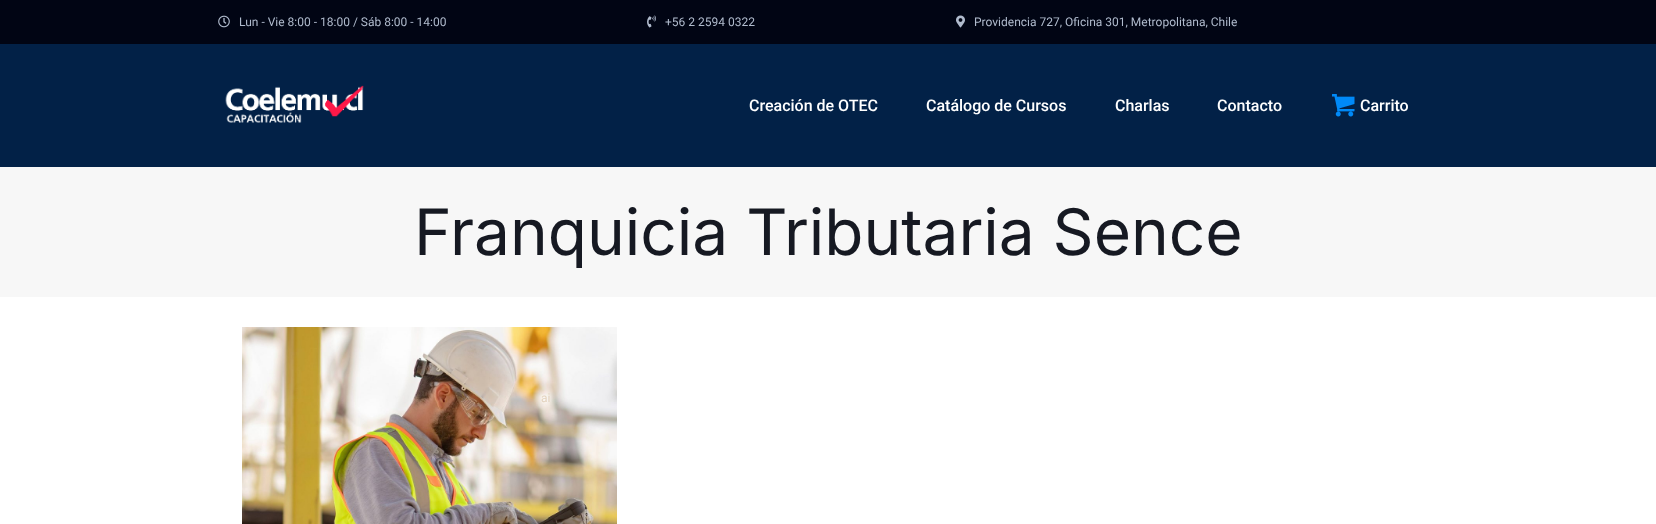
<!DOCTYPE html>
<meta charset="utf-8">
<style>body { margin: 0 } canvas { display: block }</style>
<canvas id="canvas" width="1656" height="524"></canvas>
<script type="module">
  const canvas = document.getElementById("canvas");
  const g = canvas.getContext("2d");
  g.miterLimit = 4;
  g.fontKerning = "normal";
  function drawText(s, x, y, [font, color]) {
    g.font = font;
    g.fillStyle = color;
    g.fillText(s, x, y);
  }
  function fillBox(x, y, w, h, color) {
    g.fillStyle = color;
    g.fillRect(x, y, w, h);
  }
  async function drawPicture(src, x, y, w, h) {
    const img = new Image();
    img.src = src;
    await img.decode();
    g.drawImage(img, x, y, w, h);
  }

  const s1 = ["12px Roboto", "#B0BBCD"];
  const s2 = ["500 16px Roboto", "#FFFFFF"];
  const s3 = ["64px Inter", "#161922"];
  const s4 = ["12px Roboto", "#E3D3BE"];

  fillBox(0, 0, 1656, 524, "#FFFFFF");
  fillBox(0, 0, 1656, 44, "#010514");
  await drawPicture("pic1.png", 218, 15, 12, 13);
  drawText("Lun - Vie 8:00 - 18:00 / Sáb 8:00 - 14:00", 239, 26, s1);
  await drawPicture("pic2.png", 647, 15, 9, 13);
  drawText("+56 2 2594 0322", 665, 26, s1);
  await drawPicture("pic3.png", 956, 15, 9, 13);
  drawText("Providencia 727, Oficina 301, Metropolitana, Chile", 974, 26, s1);
  fillBox(0, 44, 1656, 123, "#022147");
  await drawPicture("pic4.png", 225, 85, 139, 38);
  drawText("Creación de OTEC", 749, 111, s2);
  drawText("Catálogo de Cursos", 926, 111, s2);
  drawText("Charlas", 1115, 111, s2);
  drawText("Contacto", 1217, 111, s2);
  await drawPicture("pic5.png", 1332, 94, 23, 23);
  drawText("Carrito", 1360, 111, s2);
  fillBox(0, 167, 1656, 130, "#F7F7F7");
  drawText("Franquicia Tributaria Sence", 414, 255, s3);
  await drawPicture("pic6.png", 242, 327, 375, 197);
  drawText("ai", 541, 402, s4);
</script>
